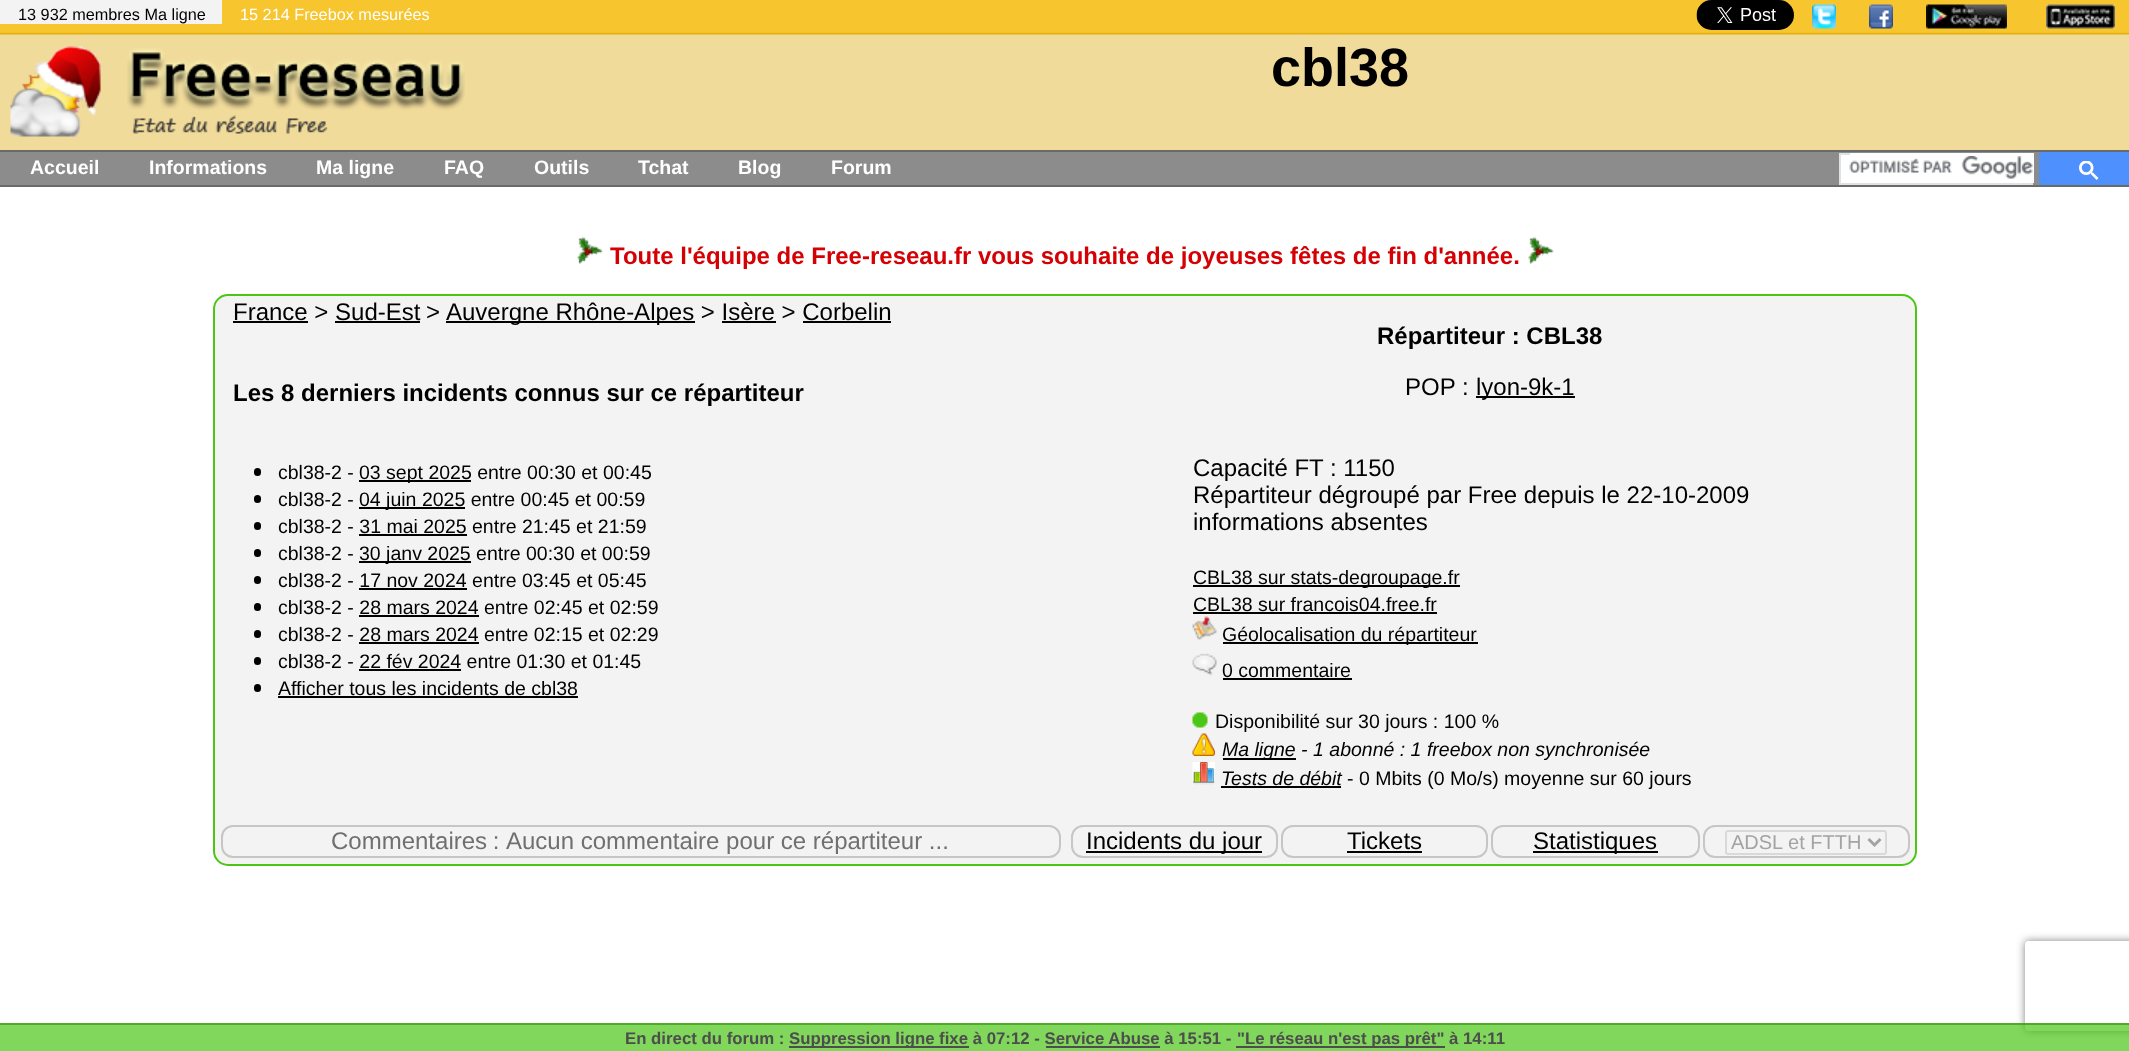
<!DOCTYPE html>
<meta charset="utf-8">
<style>body { margin: 0 } canvas { display: block }</style>
<canvas id="canvas" width="2129" height="1051"></canvas>
<script type="module">
  const canvas = document.getElementById("canvas");
  const g = canvas.getContext("2d");
  g.miterLimit = 4;
  g.fontKerning = "normal";
  function drawText(s, x, y, [font, color]) {
    g.font = font;
    g.fillStyle = color;
    g.fillText(s, x, y);
  }
  function fillBox(x, y, w, h, color) {
    g.fillStyle = color;
    g.fillRect(x, y, w, h);
  }
  function fillRounded(x, y, w, h, r, color) {
    g.fillStyle = color;
    g.beginPath();
    g.roundRect(x, y, w, h, r);
    g.fill();
  }
  async function drawPicture(src, x, y, w, h) {
    const img = new Image();
    img.src = src;
    await img.decode();
    g.drawImage(img, x, y, w, h);
  }

  const s1 = ["16.25px Liberation Sans", "#000000"];
  const s2 = ["16.25px Liberation Sans", "#FFFFFF"];
  const s3 = ["bold 54px Liberation Sans", "#000000"];
  const s4 = ["bold 19.5px Liberation Sans", "#FFFFFF"];
  const s5 = ["bold 24px Liberation Sans", "#D40003"];
  const s6 = ["24px Liberation Sans", "#000000"];
  const s7 = ["bold 24px Liberation Sans", "#000000"];
  const s8 = ["19.5px Liberation Sans", "#000000"];
  const s9 = ["italic 19.5px Liberation Sans", "#000000"];
  const s10 = ["24px Liberation Sans", "#707070"];
  const s11 = ["20px Liberation Sans", "#A3A3A3"];
  const s12 = ["bold 16.8px Liberation Sans", "#4D4D4D"];

  fillBox(0, 0, 2129, 1051, "#FFFFFF");
  fillBox(0, 34, 2129, 116, "#F1DB9B");
  await drawPicture("pic1.png", 0, 0, 2129, 35);
  fillBox(0, 0, 222, 24, "#F3F3F3");
  drawText("13 932 membres Ma ligne", 18, 20, s1);
  drawText("15 214 Freebox mesurées", 240, 20, s2);
  await drawPicture("pic2.png", 1696, 0, 98, 30);
  await drawPicture("pic3.png", 1812, 4, 24, 25);
  await drawPicture("pic4.png", 1869, 4, 24, 25);
  await drawPicture("pic5.png", 1926, 4, 81, 25);
  await drawPicture("pic6.png", 2046, 4, 69, 25);
  await drawPicture("pic7.png", 10, 46, 91, 91);
  await drawPicture("pic8.png", 127, 48, 338, 86);
  drawText("cbl38", 1271, 86, s3);
  fillBox(0, 152, 2129, 33, "#8C8C8C");
  fillBox(0, 150, 2129, 2, "#6A6A6A");
  fillBox(0, 185, 2129, 2, "#6A6A6A");
  drawText("Accueil", 30, 174, s4);
  drawText("Informations", 149, 174, s4);
  drawText("Ma ligne", 316, 174, s4);
  drawText("FAQ", 444, 174, s4);
  drawText("Outils", 534, 174, s4);
  drawText("Tchat", 638, 174, s4);
  drawText("Blog", 738, 174, s4);
  drawText("Forum", 831, 174, s4);
  fillBox(1841, 155, 9, 28, "#FFFFFF");
  g.strokeStyle = "#DFE1E5";
  g.lineWidth = 2;
  g.strokeRect(1840, 154, 192, 30);
  fillBox(1850, 153, 184, 30, "#FFFFFF");
  await drawPicture("pic9.png", 1849, 156, 184, 23);
  fillRounded(2039, 152, 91, 33, 3, "#4D90FE");
  await drawPicture("pic10.png", 2079, 161, 20, 19);
  await drawPicture("pic11.png", 577, 237, 26, 27);
  drawText("Toute l'équipe de Free-reseau.fr vous souhaite de joyeuses fêtes de fin d'année.", 610, 264, s5);
  await drawPicture("pic12.png", 1528, 237, 26, 27);
  g.fillStyle = "#F3F3F3";
  g.beginPath();
  g.roundRect(214, 295, 1702, 570, 14);
  g.fill();
  g.strokeStyle = "#4BC614";
  g.stroke();
  drawText("France > Sud-Est", 233, 320, s6);
  fillBox(233, 321, 75, 2, "#000000");
  drawText(">", 426, 320, s6);
  fillBox(446, 321, 249, 2, "#000000");
  drawText("Auvergne Rhône-Alpes > Isère > Corbelin", 446, 320, s6);
  fillBox(335, 321, 85, 2, "#000000");
  fillBox(722, 321, 54, 2, "#000000");
  fillBox(803, 321, 88, 2, "#000000");
  drawText("Les 8 derniers incidents connus sur ce répartiteur", 233, 401, s7);
  fillRounded(254, 468, 7, 8, 3.5, "#000000");
  drawText("cbl38-2 -", 278, 479, s8);
  fillBox(359, 480, 112, 2, "#000000");
  drawText("03 sept 2025 entre 00:30 et 00:45", 359, 479, s8);
  fillRounded(254, 495, 7, 8, 3.5, "#000000");
  drawText("cbl38-2 -", 278, 506, s8);
  fillBox(359, 507, 106, 2, "#000000");
  drawText("04 juin 2025 entre 00:45 et 00:59", 359, 506, s8);
  fillRounded(254, 522, 7, 8, 3.5, "#000000");
  drawText("cbl38-2 - 31 mai 2025 entre 21:45 et 21:59", 278, 533, s8);
  fillBox(359, 534, 108, 2, "#000000");
  fillRounded(254, 549, 7, 8, 3.5, "#000000");
  drawText("cbl38-2 -", 278, 560, s8);
  fillBox(359, 561, 112, 2, "#000000");
  drawText("30 janv 2025 entre 00:30 et 00:59", 359, 560, s8);
  fillRounded(254, 576, 7, 8, 3.5, "#000000");
  drawText("cbl38-2 - 17 nov 2024 entre 03:45 et 05:45", 278, 587, s8);
  fillBox(359, 588, 108, 2, "#000000");
  fillRounded(254, 603, 7, 8, 3.5, "#000000");
  drawText("cbl38-2 - 28 mars 2024 entre 02:45 et 02:59", 278, 614, s8);
  fillBox(359, 615, 120, 2, "#000000");
  fillRounded(254, 630, 7, 8, 3.5, "#000000");
  drawText("cbl38-2 - 28 mars 2024 entre 02:15 et 02:29", 278, 641, s8);
  fillBox(359, 642, 120, 2, "#000000");
  fillRounded(254, 657, 7, 8, 3.5, "#000000");
  drawText("cbl38-2 - 22 fév 2024 entre 01:30 et 01:45", 278, 668, s8);
  fillBox(359, 669, 102, 2, "#000000");
  fillRounded(254, 684, 7, 8, 3.5, "#000000");
  drawText("Afficher tous les incidents de cbl38", 278, 695, s8);
  fillBox(278, 696, 300, 2, "#000000");
  drawText("Répartiteur : CBL38", 1377, 344, s7);
  drawText("POP :", 1405, 395, s6);
  fillBox(1476, 396, 99, 2, "#000000");
  drawText("lyon-9k-1", 1476, 395, s6);
  drawText("Capacité FT : 1150", 1193, 476, s6);
  drawText("Répartiteur dégroupé par Free depuis le 22-10-2009", 1193, 503, s6);
  drawText("informations absentes", 1193, 530, s6);
  fillBox(1193, 585, 267, 2, "#000000");
  drawText("CBL38 sur stats-degroupage.fr", 1193, 584, s8);
  drawText("CBL38 sur francois04.free.fr", 1193, 611, s8);
  fillBox(1193, 612, 244, 2, "#000000");
  await drawPicture("pic13.png", 1192, 616, 25, 24);
  fillBox(1223, 642, 255, 2, "#000000");
  drawText("Géolocalisation du répartiteur", 1222, 641, s8);
  await drawPicture("pic14.png", 1192, 653, 25, 23);
  drawText("0 commentaire", 1222, 677, s8);
  fillBox(1223, 678, 129, 2, "#000000");
  await drawPicture("pic15.png", 1192, 712, 16, 16);
  drawText("Disponibilité sur 30 jours : 100 %", 1215, 728, s8);
  await drawPicture("pic16.png", 1192, 733, 23, 23);
  fillBox(1223, 758, 73, 2, "#000000");
  drawText("Ma ligne - 1 abonné : 1 freebox non synchronisée", 1222, 756, s9);
  await drawPicture("pic17.png", 1192, 762, 23, 23);
  drawText("Tests de débit", 1221, 785, s9);
  fillBox(1221, 786, 120, 2, "#000000");
  drawText("- 0 Mbits (0 Mo/s) moyenne sur 60 jours", 1347, 785, s8);
  g.beginPath();
  g.roundRect(222, 826, 838, 31, 11);
  g.strokeStyle = "#C7C6C4";
  g.stroke();
  g.wordSpacing = "-1px";
  drawText("Commentaires :", 331, 849, s10);
  g.wordSpacing = "0px";
  drawText("Aucun commentaire pour ce répartiteur ...", 506, 849, s10);
  g.beginPath();
  g.roundRect(1072, 826, 205, 31, 11);
  g.stroke();
  fillBox(1086, 851, 176, 2, "#000000");
  drawText("Incidents du jour", 1086, 849, s6);
  g.beginPath();
  g.roundRect(1282, 826, 205, 31, 11);
  g.stroke();
  drawText("Tickets", 1347, 849, s6);
  fillBox(1347, 851, 75, 2, "#000000");
  g.beginPath();
  g.roundRect(1492, 826, 207, 31, 11);
  g.stroke();
  fillBox(1533, 851, 125, 2, "#000000");
  drawText("Statistiques", 1533, 849, s6);
  g.beginPath();
  g.roundRect(1704, 826, 205, 31, 11);
  g.stroke();
  g.beginPath();
  g.roundRect(1726, 831, 160, 23, 2);
  g.strokeStyle = "#D9D9D9";
  g.stroke();
  g.beginPath();
  g.moveTo(1868.5, 839);
  g.lineTo(1874.5, 845);
  g.lineTo(1880.5, 839);
  g.strokeStyle = "#A3A3A3";
  g.lineWidth = 3;
  g.stroke();
  drawText("ADSL et FTTH", 1731, 849, s11);
  g.save();
  g.beginPath();
  g.moveTo(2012, 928);
  g.lineTo(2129, 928);
  g.lineTo(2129, 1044);
  g.lineTo(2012, 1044);
  g.closePath();
  g.moveTo(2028, 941);
  g.lineTo(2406, 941);
  g.bezierCurveTo(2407.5, 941, 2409, 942.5, 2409, 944);
  g.lineTo(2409, 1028);
  g.bezierCurveTo(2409, 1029.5, 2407.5, 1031, 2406, 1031);
  g.lineTo(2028, 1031);
  g.bezierCurveTo(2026.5, 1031, 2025, 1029.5, 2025, 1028);
  g.lineTo(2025, 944);
  g.bezierCurveTo(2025, 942.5, 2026.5, 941, 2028, 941);
  g.closePath();
  g.clip("evenodd");
  g.fillStyle = "#808080";
  g.filter = "blur(4px)";
  g.beginPath();
  g.roundRect(2025, 941, 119, 90, 3);
  g.fill();
  g.filter = "none";
  g.restore();
  fillBox(0, 1023, 2129, 28, "rgba(75, 198, 22, 0.7)");
  fillBox(0, 1023, 2129, 2, "rgba(56, 154, 14, 0.7)");
  drawText("En direct du forum :", 625, 1044, s12);
  fillBox(789, 1046, 180, 2, "#4D4D4D");
  drawText("Suppression ligne fixe à 07:12 - Service Abuse à 15:51 -", 789, 1044, s12);
  fillBox(1236, 1046, 209, 2, "#4D4D4D");
  drawText("\"Le réseau n'est pas prêt\" à 14:11", 1237, 1044, s12);
  fillBox(1046, 1046, 114, 2, "#4D4D4D");
</script>
